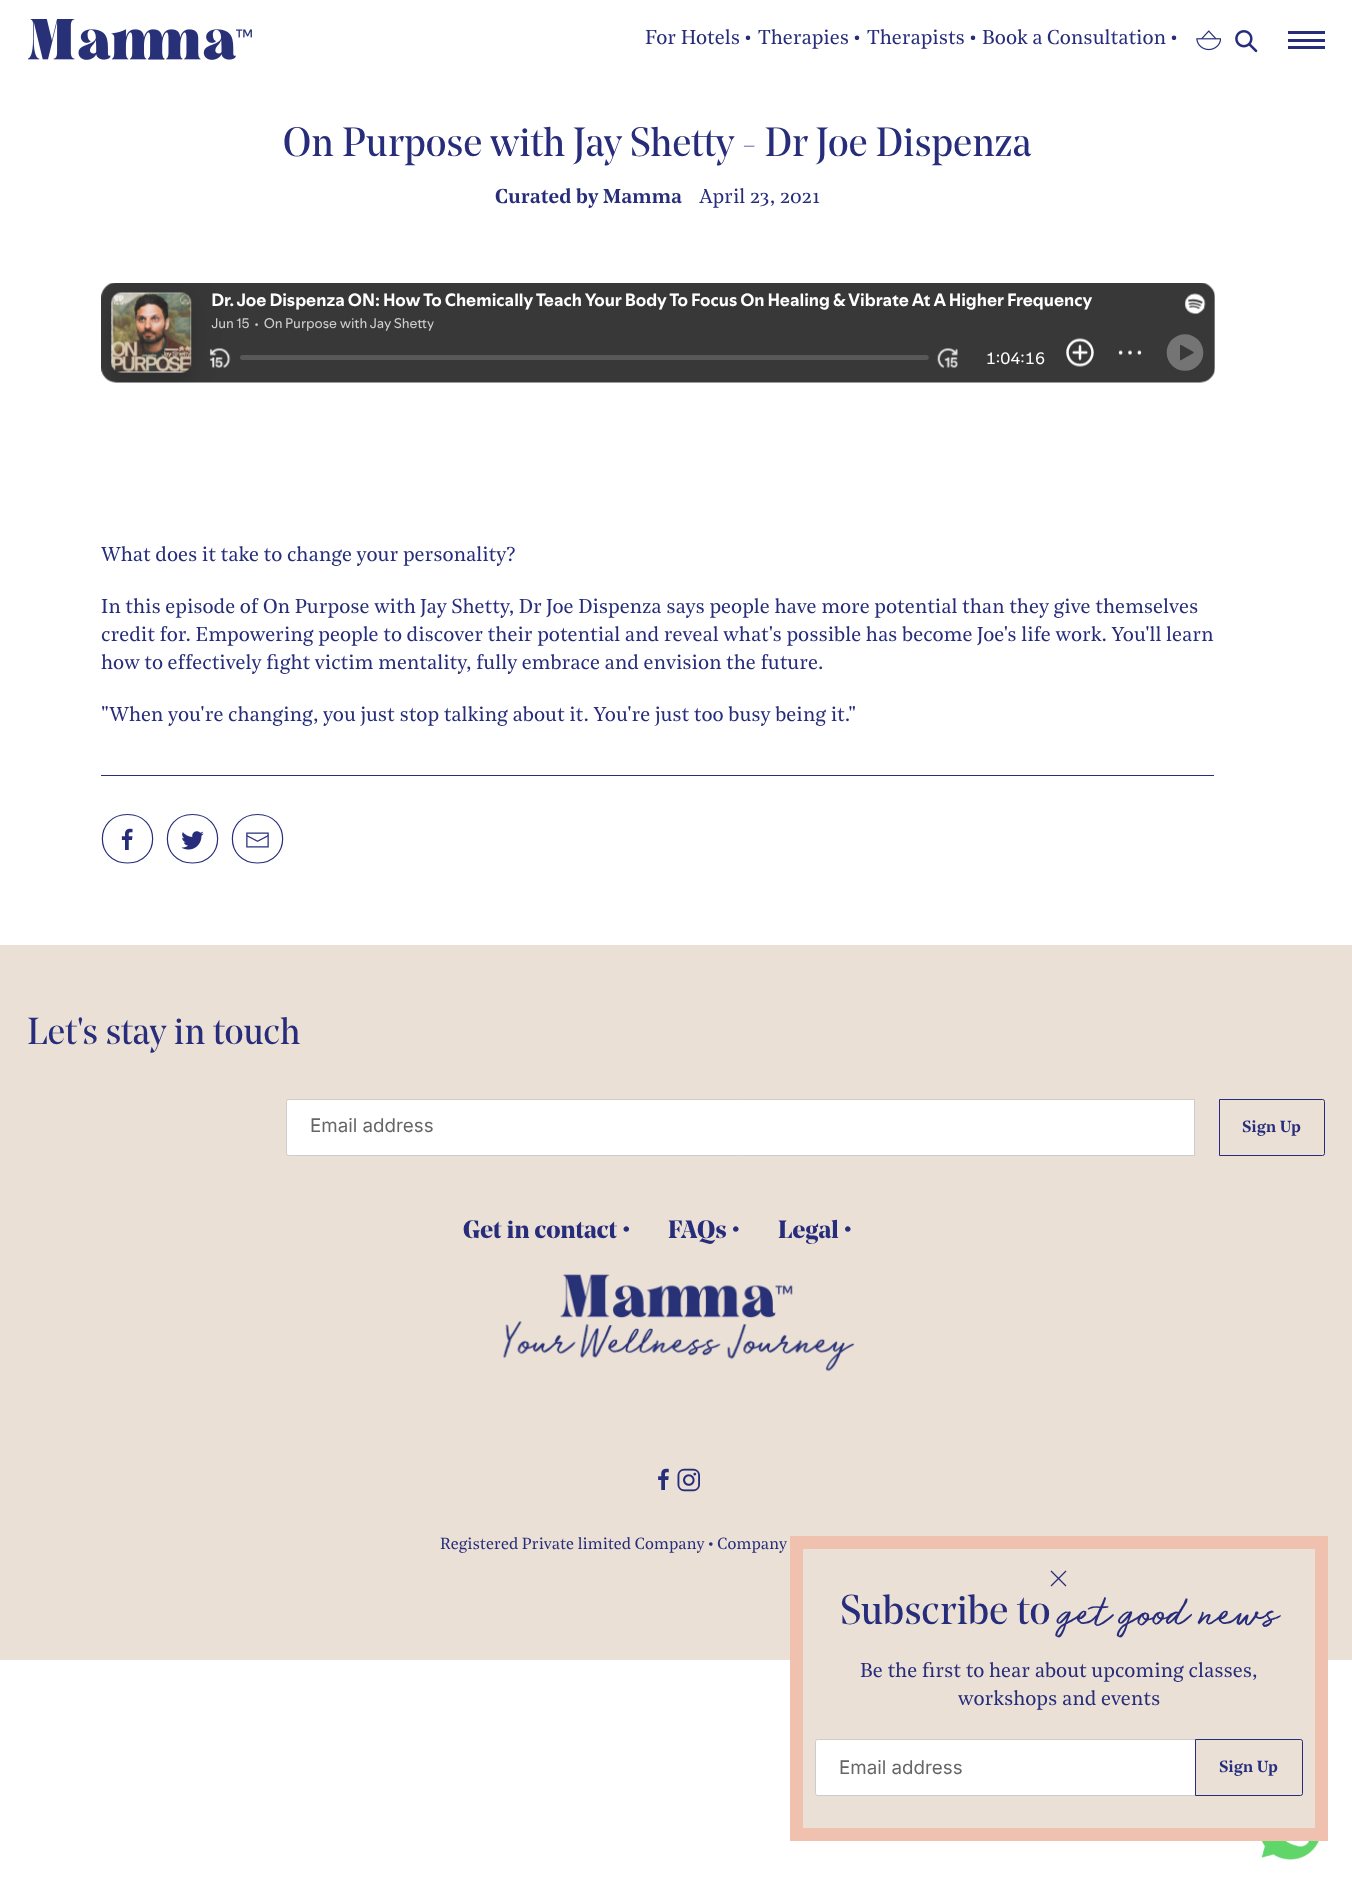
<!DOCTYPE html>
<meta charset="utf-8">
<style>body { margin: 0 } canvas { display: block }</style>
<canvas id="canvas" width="1352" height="1891"></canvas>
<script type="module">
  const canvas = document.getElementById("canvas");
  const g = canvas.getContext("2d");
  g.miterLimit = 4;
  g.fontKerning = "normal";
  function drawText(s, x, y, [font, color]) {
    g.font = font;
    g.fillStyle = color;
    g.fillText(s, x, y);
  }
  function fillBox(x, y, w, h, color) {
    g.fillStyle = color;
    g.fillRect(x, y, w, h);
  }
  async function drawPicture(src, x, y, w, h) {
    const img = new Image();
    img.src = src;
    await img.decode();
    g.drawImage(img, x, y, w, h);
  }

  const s1 = ["20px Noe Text", "#272D7A"];
  const s2 = ["41.25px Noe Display", "#272D7A"];
  const s3 = ["41.25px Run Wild", "#272D7A"];
  const s4 = ["18.75px Inter", "#666666"];
  const s5 = ["600 16px Noe Text", "#272D7A"];
  const s6 = ["40.6px Noe Display", "#272D7A"];
  const s7 = ["600 20px Noe Text", "#272D7A"];
  const s8 = ["37.5px Noe Display", "#272D7A"];
  const s9 = ["bold 25px Noe Display", "#272D7A"];
  const s10 = ["16px Noe Text", "#272D7A"];

  fillBox(0, 0, 1352, 1891, "#FFFFFF");
  await drawPicture("pic1.png", 28, 19, 224, 41);
  drawText("For Hotels •", 645, 44, s1);
  drawText("Therapies •", 758, 44, s1);
  drawText("Therapists •", 867, 44, s1);
  drawText("Book a Consultation •", 982, 44, s1);
  await drawPicture("pic2.png", 1196, 30, 25, 21);
  await drawPicture("pic3.png", 1235, 30, 23, 23);
  fillBox(1288, 31, 37, 3, "#272D7A");
  fillBox(1288, 39, 37, 3, "#272D7A");
  fillBox(1288, 46, 37, 3, "#272D7A");
  fillBox(803, 1660, 512, 168, "#EAE0D6");
  fillBox(0, 945, 1352, 715, "#EAE0D6");
  g.strokeStyle = "#F1C1B0";
  g.lineWidth = 13;
  g.strokeRect(796.5, 1542.5, 525, 292);
  g.beginPath();
  g.moveTo(1066, 1586);
  g.lineTo(1051, 1571);
  g.moveTo(1066, 1571);
  g.lineTo(1051, 1586);
  g.strokeStyle = "#272D7A";
  g.lineWidth = 1.3;
  g.stroke();
  drawText("Subscribe to", 840, 1624, s2);
  drawText("get good news", 1058, 1624, s3);
  drawText("Be the first to hear about upcoming classes,", 860, 1677, s1);
  drawText("workshops and events", 958, 1705, s1);
  g.fillStyle = "#FFFFFF";
  g.beginPath();
  g.roundRect(815.5, 1739.5, 380, 56, [2, 0, 0, 2]);
  g.fill();
  g.strokeStyle = "#CCCCCC";
  g.lineWidth = 1;
  g.stroke();
  drawText("Email address", 839, 1774, s4);
  g.beginPath();
  g.roundRect(1195.5, 1739.5, 107, 56, [0, 2, 2, 0]);
  g.strokeStyle = "#272D7A";
  g.stroke();
  drawText("Sign Up", 1219, 1772, s5);
  drawText("On Purpose with Jay Shetty - Dr Joe Dispenza", 283, 156, s6);
  drawText("Curated by Mamma", 495, 203, s7);
  drawText("April 23, 2021", 699, 203, s1);
  await drawPicture("pic4.png", 101, 283, 1114, 100);
  drawText("What does it take to change your personality?", 101, 561, s1);
  drawText("In this episode of On Purpose with Jay Shetty, Dr Joe Dispenza says people have more potential than they give themselves", 101, 613, s1);
  drawText("credit for. Empowering people to discover their potential and reveal what's possible has become Joe's life work. You'll learn", 101, 641, s1);
  drawText("how to effectively fight victim mentality, fully embrace and envision the future.", 101, 669, s1);
  drawText("\"When you're changing, you just stop talking about it. You're just too busy being it.\"", 101, 721, s1);
  fillBox(101, 775, 1113, 1, "#272D7A");
  g.beginPath();
  g.moveTo(127.5, 814.5);
  g.bezierCurveTo(161, 814.5, 161, 863, 127.5, 863);
  g.bezierCurveTo(94, 863, 94, 814.5, 127.5, 814.5);
  g.closePath();
  g.lineWidth = 1.2;
  g.stroke();
  await drawPicture("pic5.png", 121, 828, 12, 22);
  g.beginPath();
  g.moveTo(192.5, 814.5);
  g.bezierCurveTo(226, 814.5, 226, 863, 192.5, 863);
  g.bezierCurveTo(159, 863, 159, 814.5, 192.5, 814.5);
  g.closePath();
  g.stroke();
  await drawPicture("pic6.png", 181, 831, 23, 19);
  g.beginPath();
  g.moveTo(257.5, 814.5);
  g.bezierCurveTo(291, 814.5, 291, 863, 257.5, 863);
  g.bezierCurveTo(224, 863, 224, 814.5, 257.5, 814.5);
  g.closePath();
  g.stroke();
  await drawPicture("pic7.png", 246, 832, 23, 16);
  drawText("Let's stay in touch", 27, 1044, s8);
  g.fillStyle = "#FFFFFF";
  g.beginPath();
  g.roundRect(286.5, 1099.5, 908, 56, [2, 0, 0, 2]);
  g.fill();
  g.strokeStyle = "#CCCCCC";
  g.lineWidth = 1;
  g.stroke();
  drawText("Email address", 310, 1132, s4);
  g.beginPath();
  g.roundRect(1219.5, 1099.5, 105, 56, [0, 2, 2, 0]);
  g.strokeStyle = "#272D7A";
  g.stroke();
  drawText("Sign Up", 1242, 1132, s5);
  drawText("Get in contact •", 463, 1238, s9);
  drawText("FAQs •", 668, 1238, s9);
  drawText("Legal •", 778, 1238, s9);
  await drawPicture("pic8.png", 503, 1274, 352, 98);
  await drawPicture("pic9.png", 658, 1468, 11, 22);
  await drawPicture("pic10.png", 677, 1468, 23, 24);
  drawText("Registered Private limited Company • Company", 440, 1549, s10);
  await drawPicture("pic11.png", 1259, 1841, 63, 19);
</script>
